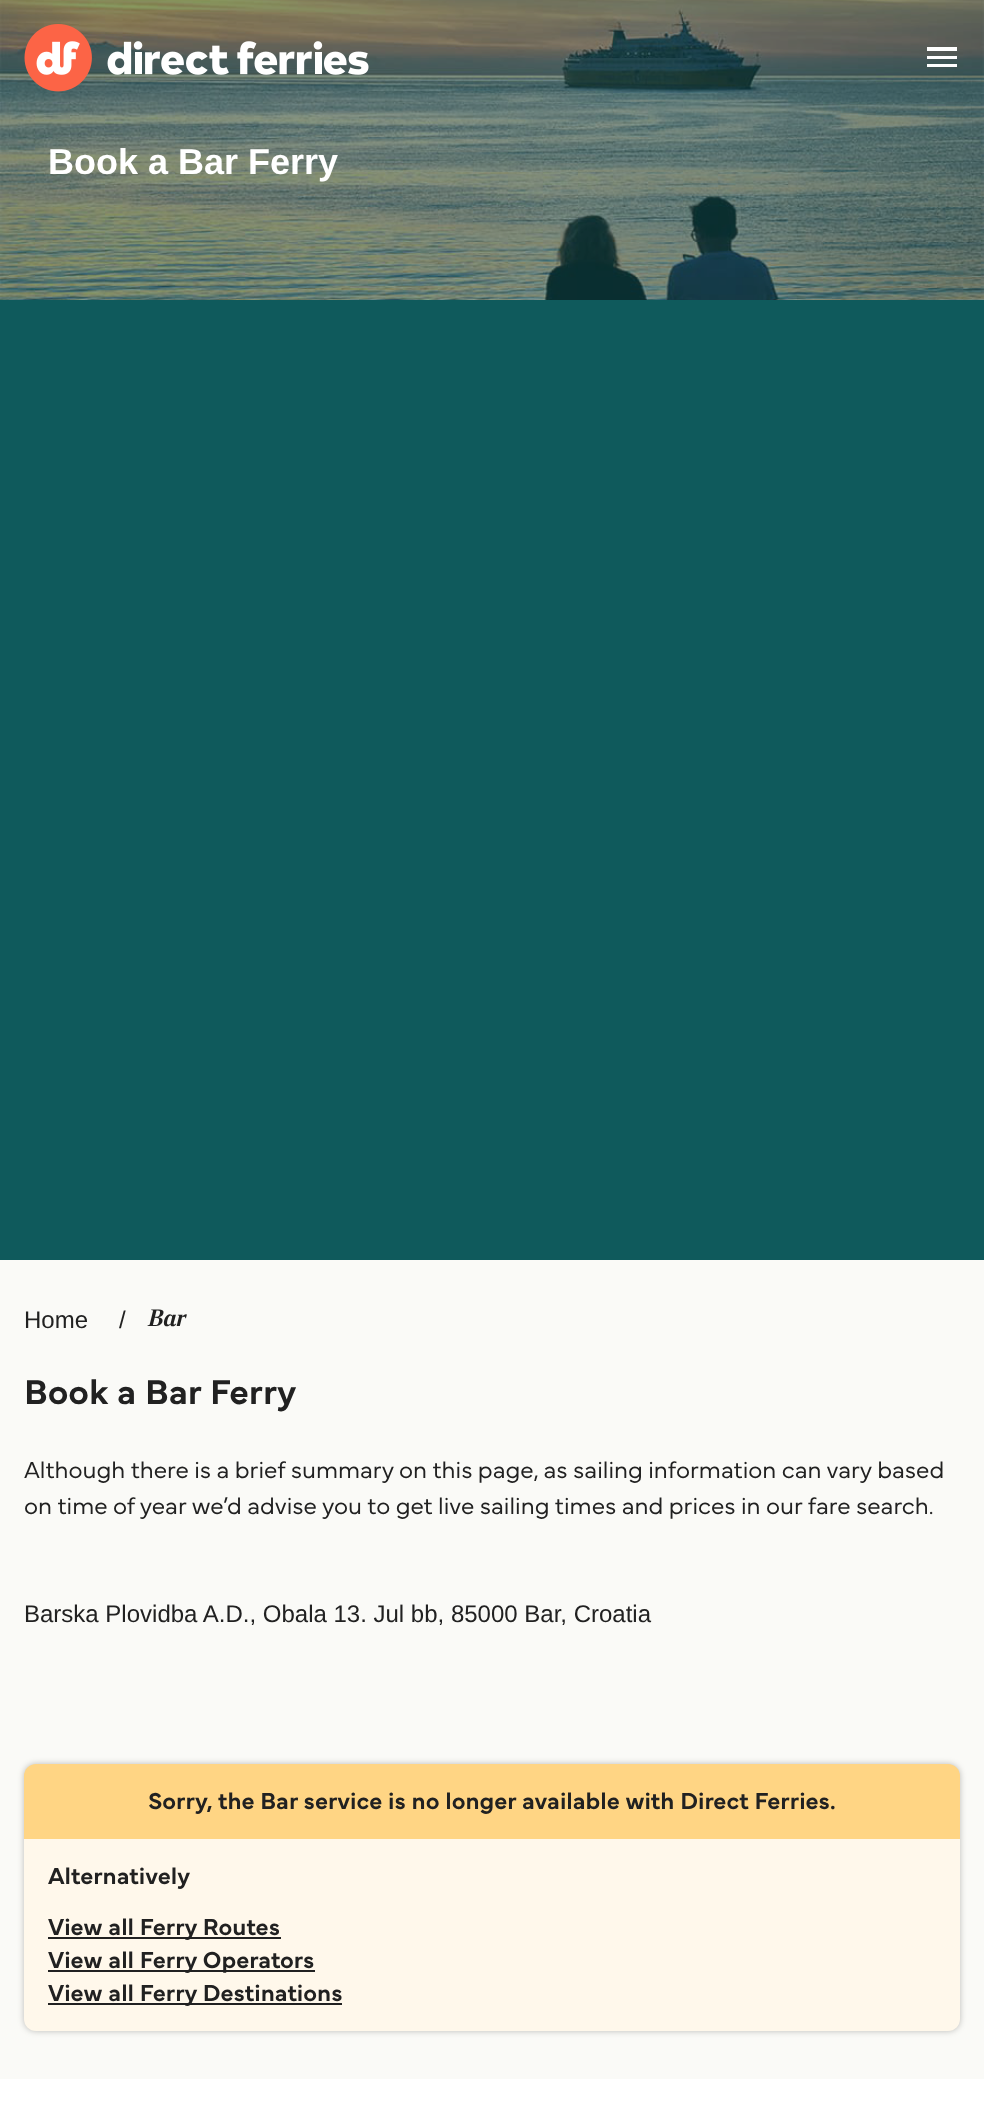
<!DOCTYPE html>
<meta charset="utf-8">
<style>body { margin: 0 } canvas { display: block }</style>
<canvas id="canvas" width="984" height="2126"></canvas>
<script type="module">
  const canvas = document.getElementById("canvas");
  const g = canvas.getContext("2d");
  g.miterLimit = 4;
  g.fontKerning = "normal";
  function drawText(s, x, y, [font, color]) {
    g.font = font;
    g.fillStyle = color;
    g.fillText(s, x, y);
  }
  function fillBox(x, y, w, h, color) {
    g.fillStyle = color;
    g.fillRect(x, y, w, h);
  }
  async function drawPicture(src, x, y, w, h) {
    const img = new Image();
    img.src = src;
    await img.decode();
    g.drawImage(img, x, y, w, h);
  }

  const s1 = ["bold 36px Liberation Sans", "#FFFFFF"];
  const s2 = ["24px Liberation Sans", "#212121"];
  const s3 = ["italic bold 24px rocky", "#212121"];
  const s4 = ["600 36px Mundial", "#212121"];
  const s5 = ["300 24px Mundial", "#212121"];
  const s6 = ["600 24px Mundial", "#212121"];

  fillBox(0, 0, 984, 2126, "#0F5A5C");
  await drawPicture("pic2.png", 0, 0, 984, 300);
  await drawPicture("pic1.png", 24, 24, 345, 68);
  fillBox(927, 47, 30, 4, "#FFFFFF");
  fillBox(927, 56, 30, 3, "#FFFFFF");
  fillBox(927, 64, 30, 3, "#FFFFFF");
  drawText("Book a Bar Ferry", 48, 174, s1);
  fillBox(0, 1260, 984, 819, "#FAFAF7");
  drawText("Home", 24, 1328, s2);
  drawText("/", 119, 1328, s2);
  drawText("Bar", 149, 1326, s3);
  drawText("Book a Bar Ferry", 24, 1404, s4);
  drawText("Although there is a brief summary on this page, as sailing information can vary based", 24, 1478, s5);
  drawText("on time of year we’d advise you to get live sailing times and prices in our fare search.", 24, 1514, s5);
  drawText("Barska Plovidba A.D., Obala 13. Jul bb, 85000 Bar, Croatia", 24, 1622, s2);
  g.fillStyle = "rgba(0, 0, 0, 0.25)";
  g.filter = "blur(3px)";
  g.beginPath();
  g.roundRect(24, 1764, 936, 267, 12);
  g.fill();
  g.filter = "none";
  g.fillStyle = "#FFD584";
  g.beginPath();
  g.roundRect(24, 1764, 936, 75, [12, 12, 0, 0]);
  g.fill();
  drawText("Sorry, the Bar service is no longer available with Direct Ferries.", 148, 1809, s6);
  g.fillStyle = "#FFF8EB";
  g.beginPath();
  g.roundRect(24, 1839, 936, 192, [0, 0, 12, 12]);
  g.fill();
  drawText("Alternatively", 48, 1884, s6);
  fillBox(48, 1937, 233, 2, "#212121");
  drawText("View all Ferry Routes", 48, 1935, s6);
  fillBox(48, 1970, 267, 2, "#212121");
  drawText("View all Ferry Operators", 48, 1968, s6);
  fillBox(48, 2003, 294, 2, "#212121");
  drawText("View all Ferry Destinations", 48, 2001, s6);
  fillBox(0, 2079, 984, 47, "#FFFFFF");
</script>
